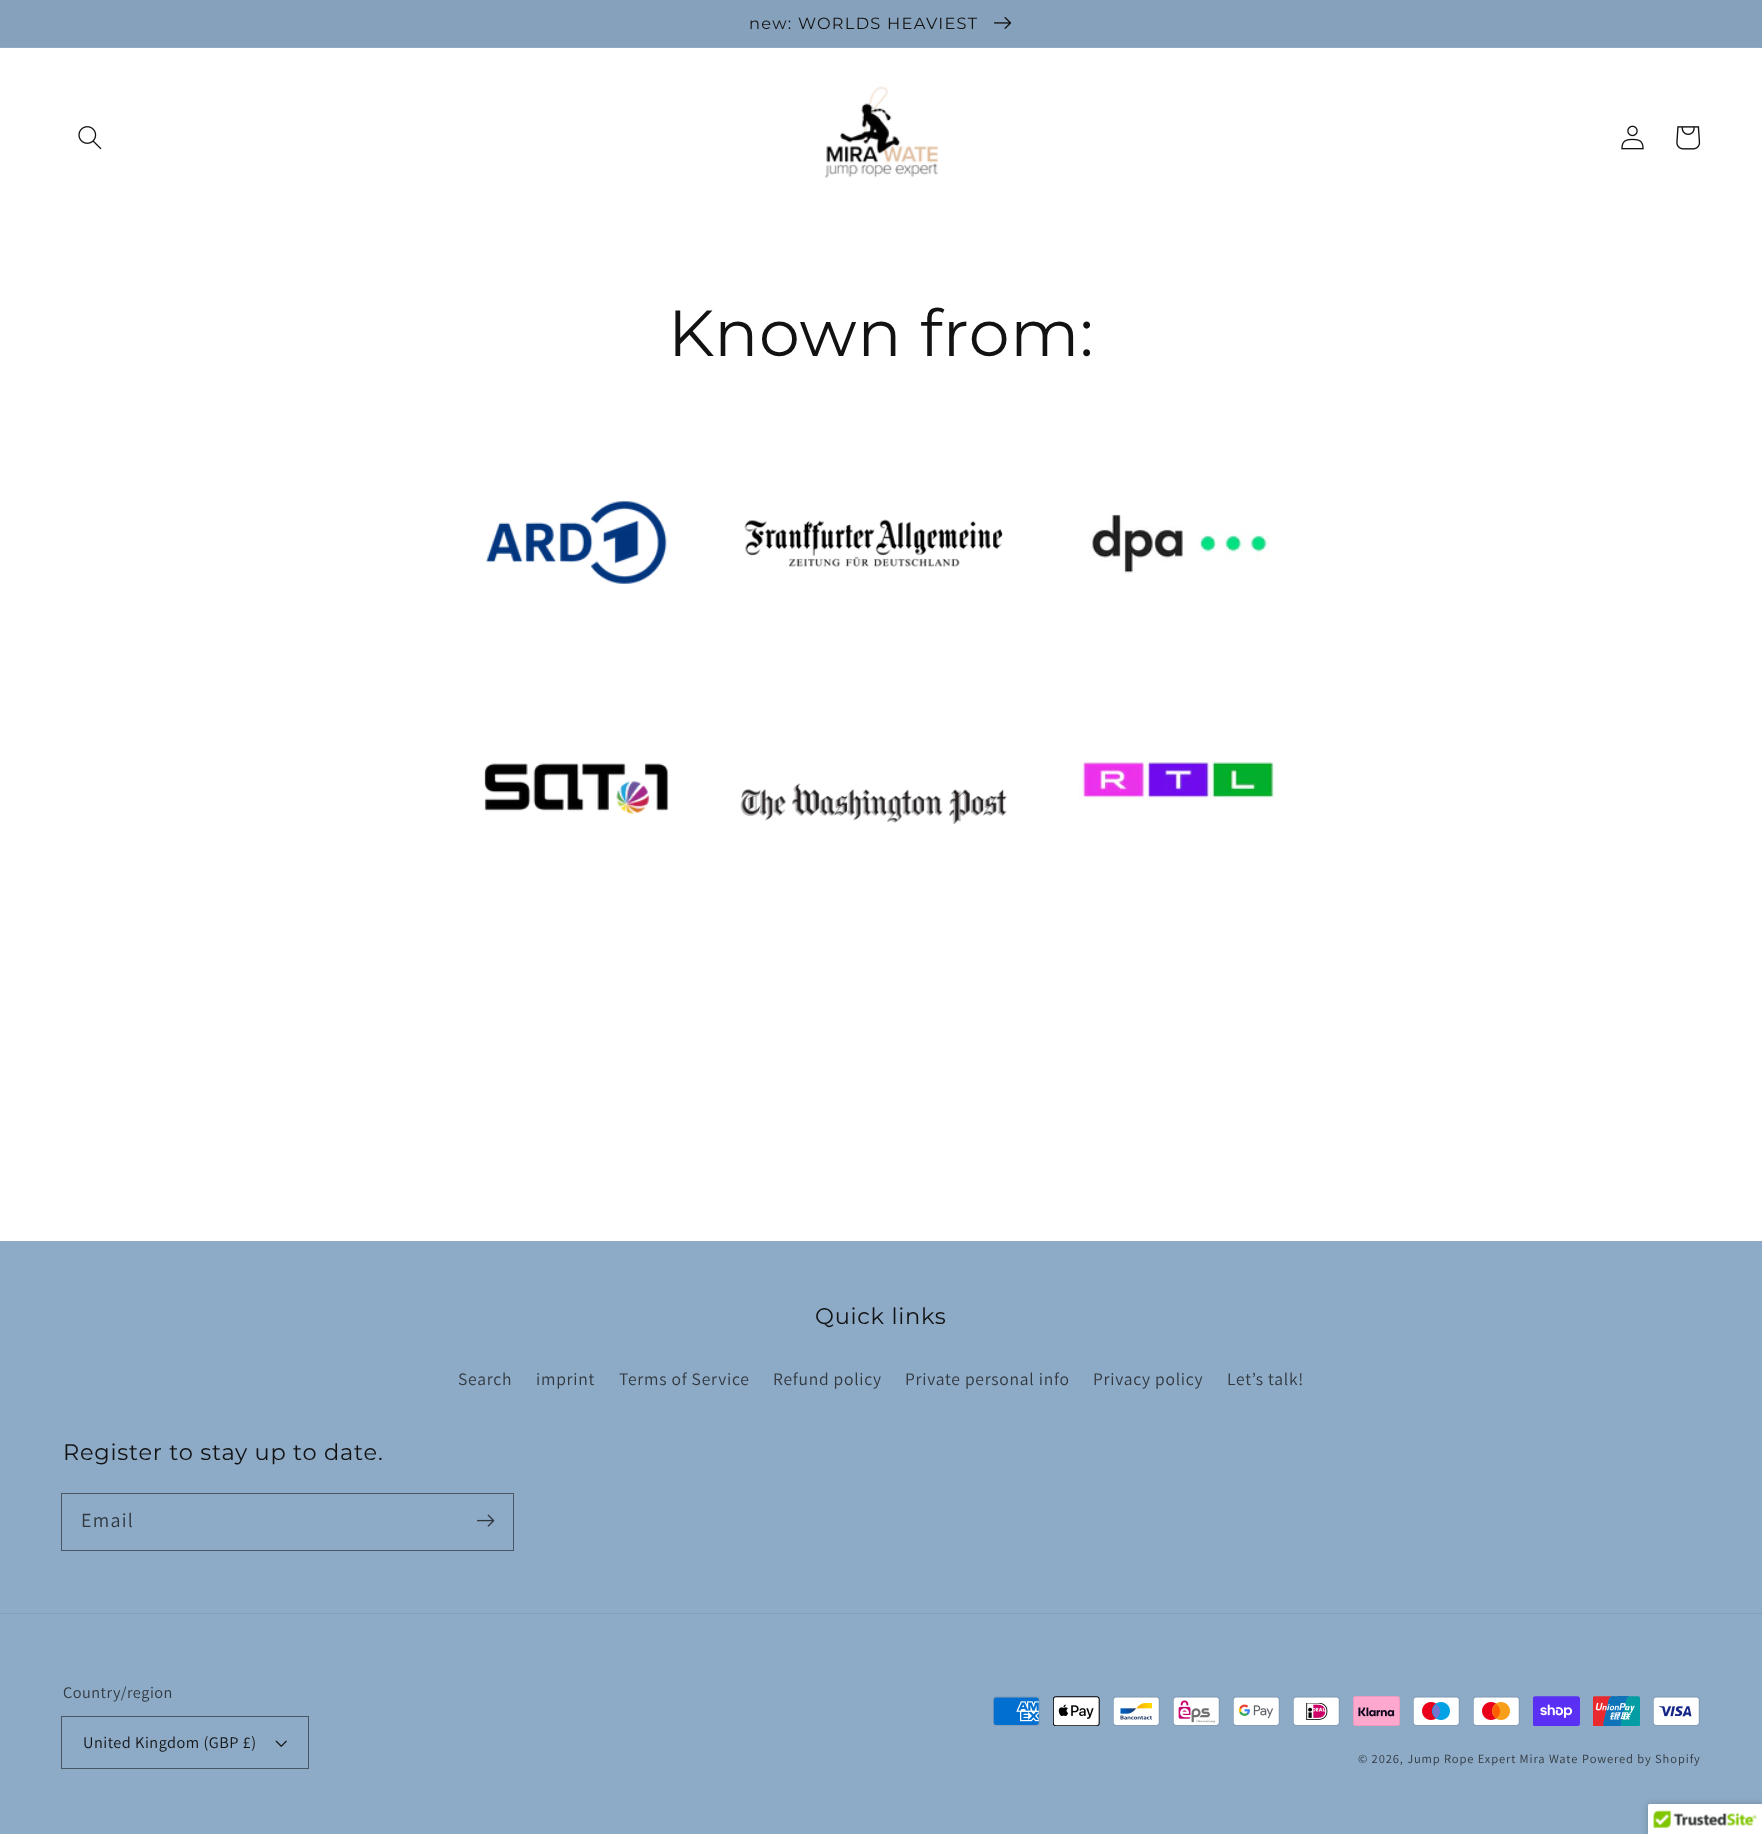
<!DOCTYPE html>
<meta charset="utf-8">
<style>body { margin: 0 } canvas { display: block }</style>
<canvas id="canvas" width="1762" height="1834"></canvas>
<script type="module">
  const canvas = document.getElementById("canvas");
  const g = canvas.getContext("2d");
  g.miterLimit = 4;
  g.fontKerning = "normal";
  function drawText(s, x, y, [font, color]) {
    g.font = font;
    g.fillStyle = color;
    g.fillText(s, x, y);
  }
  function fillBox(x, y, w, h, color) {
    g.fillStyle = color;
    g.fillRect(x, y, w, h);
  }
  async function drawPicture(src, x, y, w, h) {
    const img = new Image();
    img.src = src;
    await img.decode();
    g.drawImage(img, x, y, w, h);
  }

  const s1 = ["16.25px Montserrat", "#121212"];
  const s2 = ["65px Montserrat", "#121212"];
  const s3 = ["22.5px Montserrat", "#121212"];
  const s4 = ["17.5px Assistant", "#31383F"];
  const s5 = ["20px Assistant", "#31383F"];
  const s6 = ["16.25px Assistant", "#31383F"];
  const s7 = ["16.25px Assistant", "#121212"];
  const s8 = ["12.5px Assistant", "#31383F"];

  fillBox(0, 0, 1762, 1834, "#FFFFFF");
  fillBox(0, 47, 1762, 1, "#8DAAC6");
  fillBox(0, 46, 1762, 1, "#839EB8");
  fillBox(0, 0, 1762, 46, "#86A1BB");
  g.letterSpacing = "1.25px";
  drawText("new: WORLDS HEAVIEST", 749, 29, s1);
  await drawPicture("pic1.png", 994, 17, 18, 12);
  await drawPicture("pic2.png", 78, 126, 24, 24);
  await drawPicture("pic3.png", 825, 86, 114, 92);
  await drawPicture("pic4.png", 1621, 125, 23, 25);
  await drawPicture("pic5.png", 1676, 126, 25, 24);
  g.letterSpacing = "0.75px";
  drawText("Known from:", 668, 356, s2);
  await drawPicture("pic6.png", 486, 501, 181, 83);
  await drawPicture("pic7.png", 744, 519, 259, 48);
  await drawPicture("pic8.png", 1089, 514, 180, 61);
  await drawPicture("pic9.png", 484, 763, 185, 51);
  await drawPicture("pic10.png", 740, 783, 267, 41);
  await drawPicture("pic11.png", 1079, 761, 200, 40);
  fillBox(0, 1241, 1762, 593, "#8DAAC6");
  drawText("Quick links", 815, 1324, s3);
  drawText("Search", 458, 1385, s4);
  drawText("imprint", 536, 1385, s4);
  drawText("Terms of Service", 619, 1385, s4);
  drawText("Refund policy", 773, 1385, s4);
  drawText("Private personal info", 905, 1385, s4);
  drawText("Privacy policy", 1093, 1385, s4);
  drawText("Let’s talk!", 1227, 1385, s4);
  drawText("Register to stay up to date.", 63, 1460, s3);
  g.strokeStyle = "#495663";
  g.strokeRect(61.5, 1493.5, 452, 57);
  g.letterSpacing = "1.25px";
  drawText("Email", 81, 1527, s5);
  await drawPicture("pic12.png", 477, 1514, 18, 13);
  fillBox(0, 1613, 1762, 1, "#839EB8");
  g.letterSpacing = "0.5px";
  drawText("Country/region", 63, 1698, s6);
  g.strokeRect(61.5, 1716.5, 247, 52);
  drawText("United Kingdom (GBP £)", 83, 1748, s7);
  await drawPicture("pic13.png", 275, 1740, 12, 7);
  await drawPicture("pic14.png", 993, 1696, 47, 30);
  await drawPicture("pic15.png", 1053, 1696, 47, 30);
  await drawPicture("pic16.png", 1113, 1696, 47, 30);
  await drawPicture("pic17.png", 1173, 1696, 47, 30);
  await drawPicture("pic18.png", 1233, 1696, 47, 30);
  await drawPicture("pic19.png", 1293, 1696, 47, 30);
  await drawPicture("pic20.png", 1353, 1696, 47, 30);
  await drawPicture("pic21.png", 1413, 1696, 47, 30);
  await drawPicture("pic22.png", 1473, 1696, 47, 30);
  await drawPicture("pic23.png", 1533, 1696, 47, 30);
  await drawPicture("pic24.png", 1593, 1696, 47, 30);
  await drawPicture("pic25.png", 1653, 1696, 47, 30);
  g.letterSpacing = "0.9px";
  drawText("© 2026, Jump Rope Expert Mira Wate", 1358, 1763, s8);
  drawText("Powered by Shopify", 1582, 1763, s8);
  g.fillStyle = "rgba(0, 0, 0, 0.2)";
  g.filter = "blur(3px)";
  g.beginPath();
  g.roundRect(1648, 1804, 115, 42, 2.5);
  g.fill();
  g.filter = "none";
  g.fillStyle = "#FFFFFF";
  g.beginPath();
  g.moveTo(1650.5, 1804);
  g.lineTo(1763, 1804);
  g.lineTo(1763, 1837);
  g.lineTo(1648, 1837);
  g.lineTo(1648, 1806.5);
  g.bezierCurveTo(1648, 1805, 1649, 1804, 1650.5, 1804);
  g.closePath();
  g.fill();
  await drawPicture("pic26.png", 1648, 1804, 114, 24);
</script>
